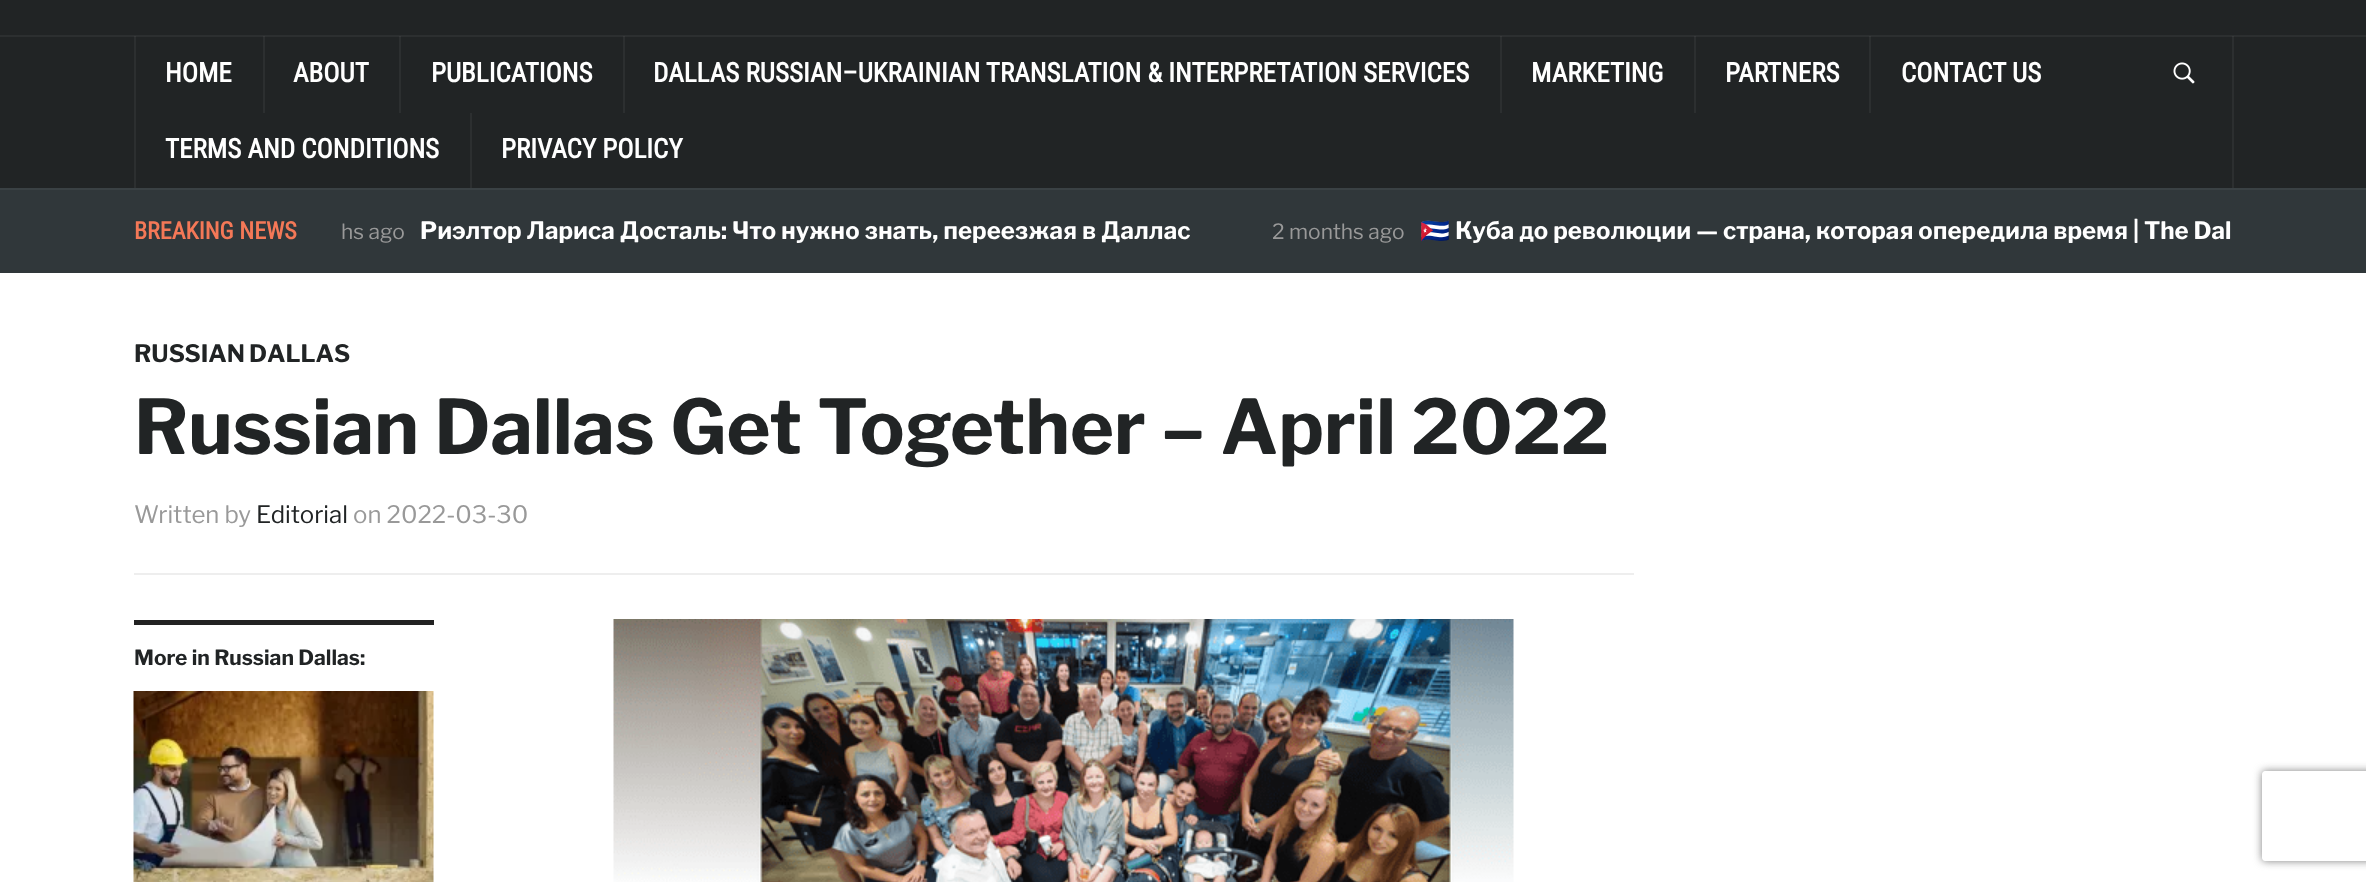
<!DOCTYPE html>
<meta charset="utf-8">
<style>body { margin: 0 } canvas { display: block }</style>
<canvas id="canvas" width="2366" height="882"></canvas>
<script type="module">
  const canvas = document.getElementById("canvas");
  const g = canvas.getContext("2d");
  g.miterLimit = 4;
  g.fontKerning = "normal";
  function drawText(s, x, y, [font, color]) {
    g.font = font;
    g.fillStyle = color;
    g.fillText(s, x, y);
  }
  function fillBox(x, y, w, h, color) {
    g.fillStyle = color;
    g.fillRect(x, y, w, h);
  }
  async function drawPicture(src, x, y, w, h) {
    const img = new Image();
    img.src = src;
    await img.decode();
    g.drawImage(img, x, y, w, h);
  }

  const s1 = ["bold 27px Roboto Condensed", "#FFFFFF"];
  const s2 = ["bold 24px Roboto Condensed", "#F47857"];
  const s3 = ["21px Libre Franklin", "#999999"];
  const s4 = ["bold 24px Libre Franklin", "#FFFFFF"];
  const s5 = ["bold 24px Noto Color Emoji", "#FFFFFF"];
  const s6 = ["bold 24px Libre Franklin", "#212425"];
  const s7 = ["bold 75px Libre Franklin", "#212425"];
  const s8 = ["24px Libre Franklin", "#999999"];
  const s9 = ["24px Libre Franklin", "#212425"];
  const s10 = ["bold 21px Libre Franklin", "#212425"];

  fillBox(0, 0, 2366, 882, "#FFFFFF");
  fillBox(0, 0, 2366, 188, "#212425");
  fillBox(1869, 36, 2, 77, "#2C2F30");
  fillBox(1694, 36, 2, 77, "#2C2F30");
  fillBox(1500, 36, 2, 77, "#2C2F30");
  fillBox(623, 36, 2, 77, "#2C2F30");
  fillBox(399, 36, 2, 77, "#2C2F30");
  fillBox(263, 36, 2, 77, "#2C2F30");
  fillBox(134, 36, 2, 152, "#2C2F30");
  fillBox(2232, 36, 2, 152, "#2C2F30");
  fillBox(0, 35, 2366, 2, "#2C2F30");
  fillBox(1869, 36, 2, 1, "#37393A");
  fillBox(1694, 36, 2, 1, "#37393A");
  fillBox(1500, 36, 2, 1, "#37393A");
  fillBox(623, 36, 2, 1, "#37393A");
  fillBox(399, 36, 2, 1, "#37393A");
  fillBox(263, 36, 2, 1, "#37393A");
  fillBox(134, 36, 2, 1, "#37393A");
  fillBox(2232, 36, 2, 1, "#37393A");
  drawText("HOME", 165, 82, s1);
  drawText("ABOUT", 293, 82, s1);
  drawText("PUBLICATIONS", 431, 82, s1);
  drawText("DALLAS RUSSIAN–UKRAINIAN TRANSLATION & INTERPRETATION SERVICES", 653, 82, s1);
  drawText("MARKETING", 1531, 82, s1);
  drawText("PARTNERS", 1725, 82, s1);
  drawText("CONTACT US", 1901, 82, s1);
  drawText("TERMS AND CONDITIONS", 165, 158, s1);
  fillBox(470, 113, 2, 75, "#2C2F30");
  drawText("PRIVACY POLICY", 501, 158, s1);
  await drawPicture("pic1.png", 2173, 62, 22, 22);
  fillBox(0, 190, 2366, 83, "#30373A");
  fillBox(0, 188, 2366, 2, "#3A4144");
  drawText("BREAKING NEWS", 134, 239, s2);
  drawText("hs ago", 341, 239, s3);
  drawText("Риэлтор Лариса Досталь: Что нужно знать, переезжая в Даллас", 420, 239, s4);
  drawText("2 months ago", 1272, 239, s3);
  drawText("🇨🇺", 1420, 239, s5);
  drawText("Куба до революции — страна, которая опередила время | The Dal", 1455, 239, s4);
  g.wordSpacing = "-1px";
  drawText("RUSSIAN DALLAS", 134, 362, s6);
  g.wordSpacing = "0px";
  drawText("Russian Dallas Get Together – April 2022", 134, 454, s7);
  fillBox(134, 573, 1500, 2, "#EEEEEE");
  drawText("Written by", 134, 523, s8);
  drawText("Editorial", 256, 523, s9);
  drawText("on 2022-03-30", 353, 523, s8);
  fillBox(134, 620, 300, 5, "#222222");
  drawText("More in Russian Dallas:", 134, 665, s10);
  await drawPicture("pic2.png", 133, 691, 301, 191);
  await drawPicture("pic3.png", 613, 619, 901, 263);
  g.save();
  g.beginPath();
  g.moveTo(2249, 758);
  g.lineTo(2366, 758);
  g.lineTo(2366, 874);
  g.lineTo(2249, 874);
  g.closePath();
  g.moveTo(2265, 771);
  g.lineTo(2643, 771);
  g.bezierCurveTo(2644.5, 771, 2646, 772.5, 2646, 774);
  g.lineTo(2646, 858);
  g.bezierCurveTo(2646, 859.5, 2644.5, 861, 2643, 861);
  g.lineTo(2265, 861);
  g.bezierCurveTo(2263.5, 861, 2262, 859.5, 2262, 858);
  g.lineTo(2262, 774);
  g.bezierCurveTo(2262, 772.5, 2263.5, 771, 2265, 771);
  g.closePath();
  g.clip("evenodd");
  g.fillStyle = "#808080";
  g.filter = "blur(4px)";
  g.beginPath();
  g.roundRect(2262, 771, 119, 90, 3);
  g.fill();
  g.filter = "none";
  g.restore();
</script>
